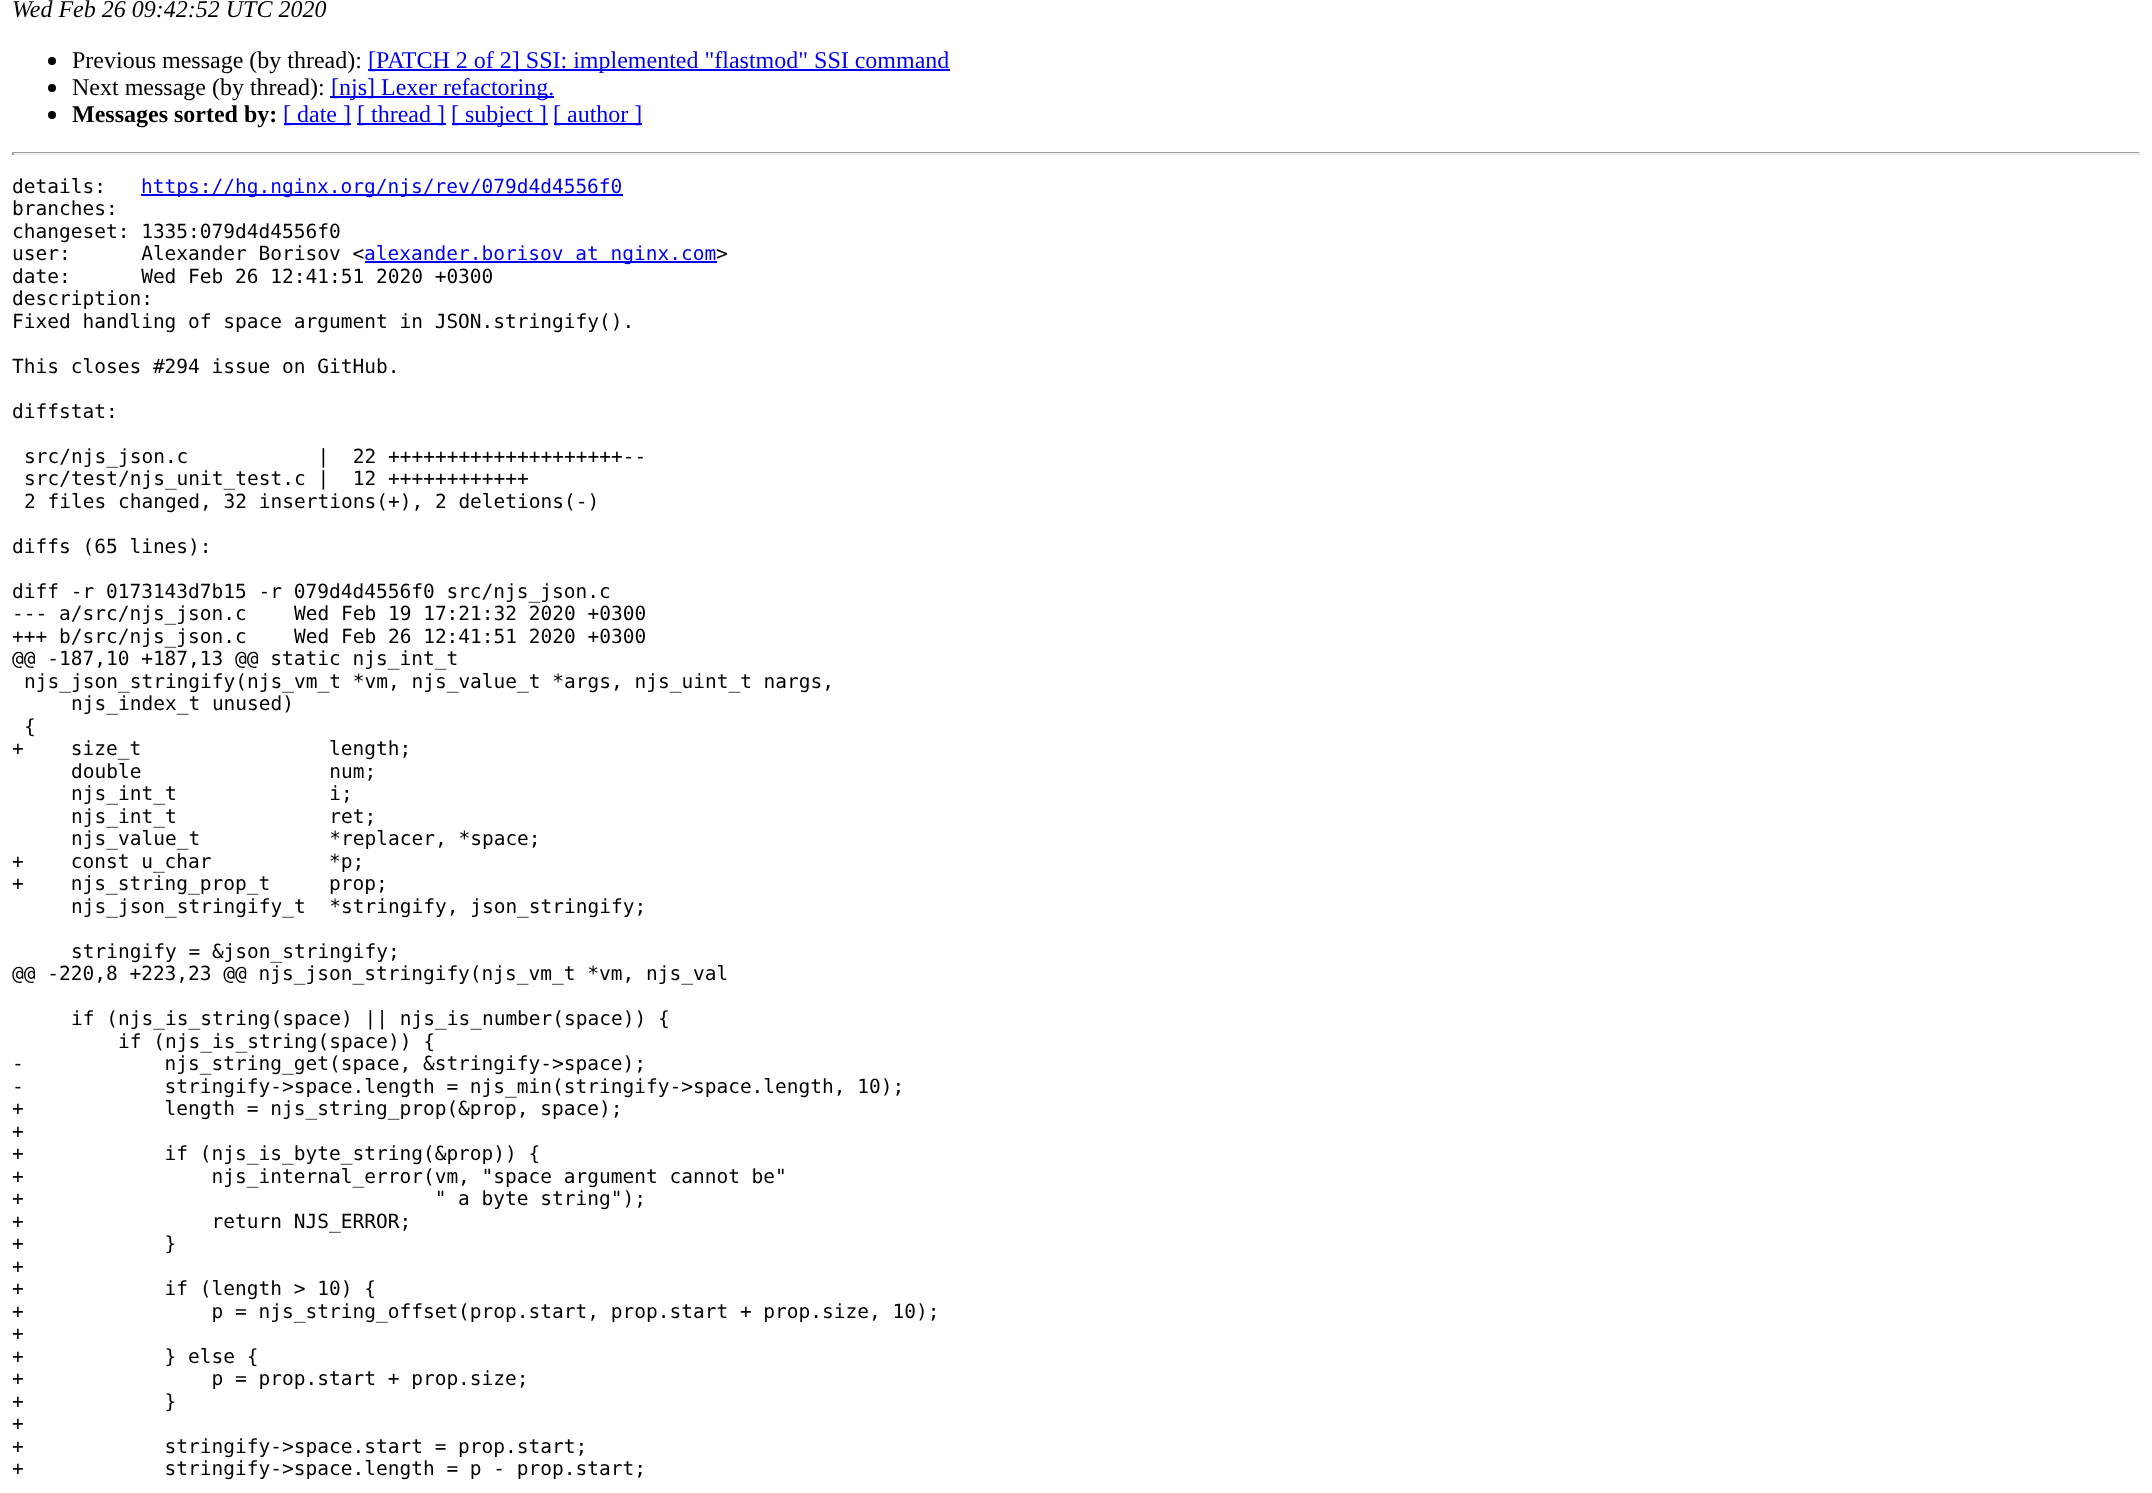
<!DOCTYPE html>
<meta charset="utf-8">
<style>body { margin: 0 } canvas { display: block }</style>
<canvas id="canvas" width="2152" height="1493"></canvas>
<script type="module">
  const canvas = document.getElementById("canvas");
  const g = canvas.getContext("2d");
  g.miterLimit = 4;
  g.fontKerning = "normal";
  function drawText(s, x, y, [font, color]) {
    g.font = font;
    g.fillStyle = color;
    g.fillText(s, x, y);
  }
  function fillBox(x, y, w, h, color) {
    g.fillStyle = color;
    g.fillRect(x, y, w, h);
  }

  const s1 = ["italic 24px Liberation Serif", "#000000"];
  const s2 = ["24px Liberation Serif", "#000000"];
  const s3 = ["24px Liberation Serif", "#0000EE"];
  const s4 = ["bold 24px Liberation Serif", "#000000"];
  const s5 = ["19.5px DejaVu Sans Mono", "#000000"];
  const s6 = ["19.5px DejaVu Sans Mono", "#0000EE"];

  fillBox(0, 0, 2152, 1493, "#FFFFFF");
  drawText("Wed Feb 26 09:42:52 UTC 2020", 12, 17, s1);
  g.beginPath();
  g.arc(52, 61, 4, 0, Math.PI * 2);
  g.fill();
  drawText("Previous message (by thread):", 72, 68, s2);
  fillBox(368, 69, 582, 2, "#0000EE");
  drawText("[PATCH 2 of 2] SSI: implemented \"flastmod\" SSI command", 368, 68, s3);
  g.fillStyle = "#000000";
  g.beginPath();
  g.arc(52, 88, 4, 0, Math.PI * 2);
  g.fill();
  drawText("Next message (by thread):", 72, 95, s2);
  fillBox(330, 96, 224, 2, "#0000EE");
  drawText("[njs] Lexer refactoring.", 331, 95, s3);
  g.fillStyle = "#000000";
  g.beginPath();
  g.arc(52, 115, 4, 0, Math.PI * 2);
  g.fill();
  drawText("Messages sorted by:", 72, 122, s4);
  fillBox(284, 123, 67, 2, "#0000EE");
  drawText("[ date ]", 283, 122, s3);
  fillBox(357, 123, 89, 2, "#0000EE");
  drawText("[ thread ]", 357, 122, s3);
  fillBox(452, 123, 96, 2, "#0000EE");
  drawText("[ subject ]", 451, 122, s3);
  fillBox(554, 123, 88, 2, "#0000EE");
  drawText("[ author ]", 553, 122, s3);
  fillBox(12, 152, 2129, 1, "#9F9F9F");
  fillBox(2139, 152, 2, 3, "#EEEEEE");
  fillBox(12, 153, 2129, 2, "#EEEEEE");
  fillBox(12, 152, 2, 3, "#9F9F9F");
  drawText("details:", 12, 193, s5);
  fillBox(141, 194, 482, 2, "#0000EE");
  drawText("https://hg.nginx.org/njs/rev/079d4d4556f0", 141, 193, s6);
  drawText("branches:", 12, 215, s5);
  drawText("changeset: 1335:079d4d4556f0", 12, 238, s5);
  drawText("user:      Alexander Borisov <", 12, 260, s5);
  fillBox(365, 261, 352, 2, "#0000EE");
  drawText("alexander.borisov at nginx.com", 364, 260, s6);
  drawText(">", 716, 260, s5);
  drawText("date:      Wed Feb 26 12:41:51 2020 +0300", 12, 283, s5);
  drawText("description:", 12, 305, s5);
  drawText("Fixed handling of space argument in JSON.stringify().", 12, 328, s5);
  drawText("This closes #294 issue on GitHub.", 12, 373, s5);
  drawText("diffstat:", 12, 418, s5);
  drawText("src/njs_json.c           |  22 ++++++++++++++++++++--", 24, 463, s5);
  drawText("src/test/njs_unit_test.c |  12 ++++++++++++", 24, 485, s5);
  drawText("2 files changed, 32 insertions(+), 2 deletions(-)", 24, 508, s5);
  drawText("diffs (65 lines):", 12, 553, s5);
  drawText("diff -r 0173143d7b15 -r 079d4d4556f0 src/njs_json.c", 12, 598, s5);
  drawText("--- a/src/njs_json.c", 12, 620, s5);
  drawText("Wed Feb 19 17:21:32 2020 +0300", 294, 620, s5);
  drawText("+++ b/src/njs_json.c", 12, 643, s5);
  drawText("Wed Feb 26 12:41:51 2020 +0300", 294, 643, s5);
  drawText("@@ -187,10 +187,13 @@ static njs_int_t", 12, 665, s5);
  drawText("njs_json_stringify(njs_vm_t *vm, njs_value_t *args, njs_uint_t nargs,", 24, 688, s5);
  drawText("njs_index_t unused)", 71, 710, s5);
  drawText("{", 24, 733, s5);
  drawText("+    size_t                length;", 12, 755, s5);
  drawText("double                num;", 71, 778, s5);
  drawText("njs_int_t             i;", 71, 800, s5);
  drawText("njs_int_t             ret;", 71, 823, s5);
  drawText("njs_value_t           *replacer, *space;", 71, 845, s5);
  drawText("+    const u_char          *p;", 12, 868, s5);
  drawText("+    njs_string_prop_t     prop;", 12, 890, s5);
  drawText("njs_json_stringify_t  *stringify, json_stringify;", 71, 913, s5);
  drawText("stringify = &json_stringify;", 71, 958, s5);
  drawText("@@ -220,8 +223,23 @@ njs_json_stringify(njs_vm_t *vm, njs_val", 12, 980, s5);
  drawText("if (njs_is_string(space) || njs_is_number(space)) {", 71, 1025, s5);
  drawText("if (njs_is_string(space)) {", 118, 1048, s5);
  drawText("-            njs_string_get(space, &stringify->space);", 12, 1070, s5);
  drawText("-            stringify->space.length = njs_min(stringify->space.length, 10);", 12, 1093, s5);
  drawText("+            length = njs_string_prop(&prop, space);", 12, 1115, s5);
  drawText("+", 12, 1138, s5);
  drawText("+            if (njs_is_byte_string(&prop)) {", 12, 1160, s5);
  drawText("+                njs_internal_error(vm, \"space argument cannot be\"", 12, 1183, s5);
  drawText("+                                   \" a byte string\");", 12, 1205, s5);
  drawText("+                return NJS_ERROR;", 12, 1228, s5);
  drawText("+            }", 12, 1250, s5);
  drawText("+", 12, 1273, s5);
  drawText("+            if (length > 10) {", 12, 1295, s5);
  drawText("+                p = njs_string_offset(prop.start, prop.start + prop.size, 10);", 12, 1318, s5);
  drawText("+", 12, 1340, s5);
  drawText("+            } else {", 12, 1363, s5);
  drawText("+                p = prop.start + prop.size;", 12, 1385, s5);
  drawText("+            }", 12, 1408, s5);
  drawText("+", 12, 1430, s5);
  drawText("+            stringify->space.start = prop.start;", 12, 1453, s5);
  drawText("+            stringify->space.length = p - prop.start;", 12, 1475, s5);
</script>
